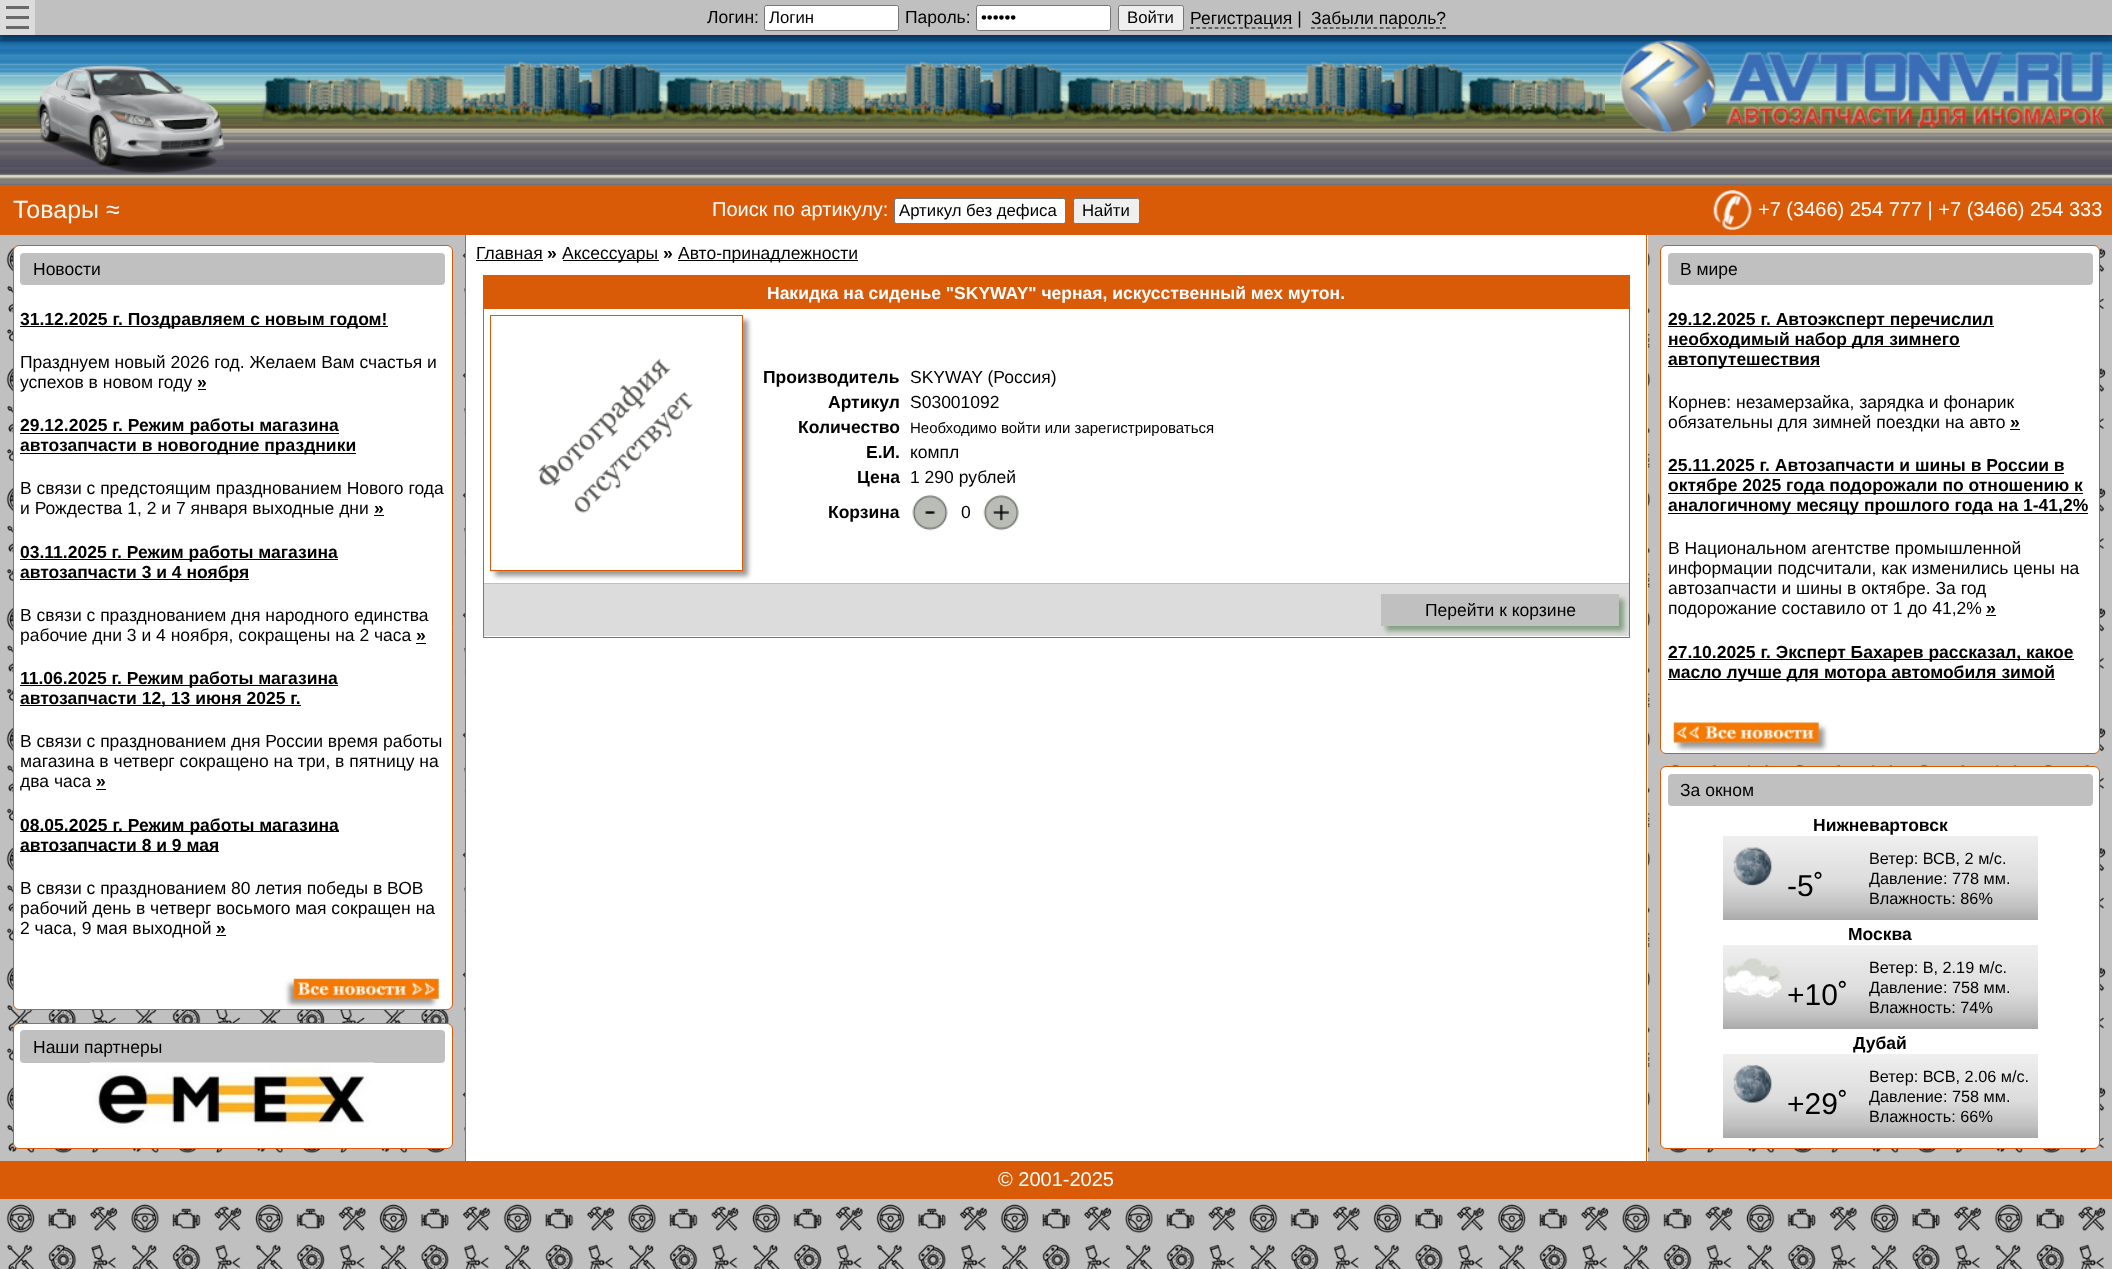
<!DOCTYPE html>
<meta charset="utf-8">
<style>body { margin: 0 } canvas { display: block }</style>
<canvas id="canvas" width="2112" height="1269"></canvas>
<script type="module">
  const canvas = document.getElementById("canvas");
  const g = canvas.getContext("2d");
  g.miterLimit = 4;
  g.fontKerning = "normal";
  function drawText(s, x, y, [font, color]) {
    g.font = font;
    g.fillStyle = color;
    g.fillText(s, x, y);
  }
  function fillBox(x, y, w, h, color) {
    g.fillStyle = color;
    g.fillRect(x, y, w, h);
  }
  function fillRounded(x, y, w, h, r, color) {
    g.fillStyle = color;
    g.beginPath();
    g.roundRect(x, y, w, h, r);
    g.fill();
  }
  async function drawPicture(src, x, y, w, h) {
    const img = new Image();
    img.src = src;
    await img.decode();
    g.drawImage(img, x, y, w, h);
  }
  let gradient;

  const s1 = ["17.5px Liberation Sans", "#000000"];
  const s2 = ["16.75px Liberation Sans", "#000000"];
  const s3 = ["25px Liberation Sans", "#FDF7F3"];
  const s4 = ["20px Liberation Sans", "#FFFFFF"];
  const s5 = ["bold 17.5px Liberation Sans", "#000000"];
  const s6 = ["bold 17.5px Liberation Sans", "#FFFFFF"];
  const s7 = ["15px Liberation Sans", "#000000"];
  const s8 = ["30px Liberation Sans", "#000000"];
  const s9 = ["16.25px Liberation Sans", "#000000"];

  fillBox(0, 0, 2112, 1269, "#C0C0C0");
  await drawPicture("pic1.png", 6, 245, 2100, 1024);
  await drawPicture("pic2.png", 0, 35, 2112, 150);
  await drawPicture("pic5.png", 1620, 40, 484, 93);
  g.fillStyle = "rgba(0, 0, 0, 0.4)";
  g.filter = "blur(2.5px)";
  g.beginPath();
  g.rect(0, 5, 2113, 35);
  g.fill();
  g.filter = "none";
  fillBox(35, 0, 2077, 35, "#C0C0C0");
  fillBox(0, 0, 35, 35, "#DCDCDC");
  fillBox(6, 16, 23, 3, "#696969");
  fillBox(6, 6, 23, 3, "#696969");
  fillBox(6, 26, 23, 3, "#696969");
  drawText("Логин:", 707, 23, s1);
  g.fillStyle = "#FFFFFF";
  g.beginPath();
  g.roundRect(764.5, 5.5, 134, 25, 2);
  g.fill();
  g.strokeStyle = "#767676";
  g.stroke();
  drawText("Логин", 769, 23, s2);
  drawText("Пароль:", 905, 23, s1);
  g.fillStyle = "#FFFFFF";
  g.beginPath();
  g.roundRect(976.5, 5.5, 134, 25, 2);
  g.fill();
  g.stroke();
  drawText("••••••", 981, 23, s2);
  g.fillStyle = "#EFEFEF";
  g.beginPath();
  g.roundRect(1118.5, 5.5, 65, 25, 2);
  g.fill();
  g.stroke();
  drawText("Войти", 1127, 23, s2);
  g.beginPath();
  g.moveTo(1190, 28);
  g.lineTo(1292.5, 28);
  g.strokeStyle = "#000000";
  g.lineWidth = 1.2;
  g.setLineDash([3.75, 2.42]);
  g.stroke();
  drawText("Регистрация |", 1190, 24, s1);
  g.beginPath();
  g.moveTo(1311, 28);
  g.lineTo(1446, 28);
  g.setLineDash([3.75, 2.5]);
  g.stroke();
  drawText("Забыли пароль?", 1311, 24, s1);
  await drawPicture("pic3.png", 36, 65, 189, 109);
  await drawPicture("pic4.png", 262, 61, 1343, 63);
  fillBox(466, 235, 1182, 926, "#FFFFFF");
  fillBox(1646, 233, 1, 928, "#D95A07");
  fillBox(465, 233, 1, 928, "#D95A07");
  fillBox(0, 185, 2112, 50, "#D95A07");
  drawText("Товары ≈", 13, 218, s3);
  drawText("Поиск по артикулу:", 712, 216, s4);
  g.beginPath();
  g.roundRect(894.5, 198.5, 171, 25, 2);
  g.fill();
  g.strokeStyle = "#767676";
  g.lineWidth = 1;
  g.setLineDash([]);
  g.stroke();
  drawText("Артикул без дефиса", 899, 216, s2);
  g.fillStyle = "#EFEFEF";
  g.beginPath();
  g.roundRect(1073.5, 198.5, 66, 25, 2);
  g.fill();
  g.stroke();
  drawText("Найти", 1082, 216, s2);
  await drawPicture("pic6.png", 1713, 190, 39, 40);
  drawText("+7 (3466) 254 777 | +7 (3466) 254 333", 1758, 216, s4);
  g.beginPath();
  g.roundRect(13.5, 245.5, 439, 764, 5.5);
  g.fill();
  g.strokeStyle = "#D95A07";
  g.stroke();
  fillRounded(20, 253, 425, 32, 4, "#C0C0C0");
  drawText("Новости", 33, 275, s1);
  fillBox(20, 326, 368, 1, "#000000");
  drawText("31.12.2025 г. Поздравляем с новым годом!", 20, 325, s5);
  drawText("Празднуем новый 2026 год. Желаем Вам счастья и", 20, 368, s1);
  drawText("успехов в новом году", 20, 388, s1);
  drawText("»", 197, 388, s5);
  fillBox(198, 389, 8, 1, "#000000");
  fillBox(20, 433, 319, 1, "#000000");
  drawText("29.12.2025 г. Режим работы магазина", 20, 431, s5);
  fillBox(20, 453, 336, 1, "#000000");
  drawText("автозапчасти в новогодние праздники", 20, 451, s5);
  drawText("В связи с предстоящим празднованием Нового года", 20, 494, s1);
  drawText("и Рождества 1, 2 и 7 января выходные дни", 20, 514, s1);
  drawText("»", 374, 514, s5);
  fillBox(374, 515, 10, 1, "#000000");
  fillBox(20, 559, 318, 1, "#000000");
  drawText("03.11.2025 г. Режим работы магазина", 20, 558, s5);
  fillBox(20, 579, 229, 1, "#000000");
  drawText("автозапчасти 3 и 4 ноября", 20, 578, s5);
  drawText("В связи с празднованием дня народного единства", 20, 621, s1);
  drawText("рабочие дни 3 и 4 ноября, сокращены на 2 часа", 20, 641, s1);
  drawText("»", 416, 641, s5);
  fillBox(416, 643, 10, 1, "#000000");
  fillBox(20, 685, 318, 1, "#000000");
  drawText("11.06.2025 г. Режим работы магазина", 20, 684, s5);
  fillBox(20, 705, 281, 1, "#000000");
  drawText("автозапчасти 12, 13 июня 2025 г.", 20, 704, s5);
  drawText("В связи с празднованием дня России время работы", 20, 747, s1);
  drawText("магазина в четверг сокращено на три, в пятницу на", 20, 767, s1);
  drawText("два часа", 20, 787, s1);
  drawText("»", 96, 787, s5);
  fillBox(96, 789, 10, 1, "#000000");
  fillBox(20, 831, 319, 1, "#000000");
  drawText("08.05.2025 г. Режим работы магазина", 20, 831, s5);
  fillBox(20, 851, 199, 1, "#000000");
  drawText("автозапчасти 8 и 9 мая", 20, 851, s5);
  drawText("В связи с празднованием 80 летия победы в ВОВ", 20, 894, s1);
  drawText("рабочий день в четверг восьмого мая сокращен на", 20, 914, s1);
  drawText("2 часа, 9 мая выходной", 20, 934, s1);
  drawText("»", 216, 934, s5);
  fillBox(216, 935, 10, 1, "#000000");
  g.fillStyle = "rgba(0, 0, 0, 0.4)";
  g.filter = "blur(2.5px)";
  g.beginPath();
  g.rect(289, 984, 145, 20);
  g.fill();
  g.filter = "none";
  await drawPicture("pic7.png", 293, 978, 146, 21);
  g.fillStyle = "#FFFFFF";
  g.beginPath();
  g.roundRect(13.5, 1023.5, 439, 125, 5.5);
  g.fill();
  g.stroke();
  fillRounded(20, 1030, 425, 33, 4, "#C0C0C0");
  drawText("Наши партнеры", 33, 1053, s1);
  await drawPicture("pic8.png", 90, 1062, 284, 67);
  drawText("Главная", 476, 259, s1);
  fillBox(476, 260, 67, 1, "#000000");
  drawText("»", 547, 259, s5);
  fillBox(563, 260, 96, 1, "#000000");
  drawText("Аксессуары", 562, 259, s1);
  drawText("»", 663, 259, s5);
  fillBox(678, 260, 180, 1, "#000000");
  drawText("Авто-принадлежности", 678, 259, s1);
  g.strokeRect(483.5, 275.5, 1146, 362);
  fillBox(484, 276, 1145, 33, "#D95A07");
  drawText("Накидка на сиденье \"SKYWAY\" черная, искусственный мех мутон.", 767, 299, s6);
  fillBox(484, 584, 1145, 52, "#DCDCDC");
  fillBox(484, 583, 1145, 1, "#C0C0C0");
  g.save();
  g.beginPath();
  g.moveTo(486, 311);
  g.lineTo(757, 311);
  g.lineTo(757, 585);
  g.lineTo(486, 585);
  g.closePath();
  g.moveTo(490, 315);
  g.lineTo(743, 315);
  g.lineTo(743, 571);
  g.lineTo(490, 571);
  g.closePath();
  g.clip("evenodd");
  g.fillStyle = "rgba(0, 0, 0, 0.4)";
  g.filter = "blur(2.5px)";
  g.beginPath();
  g.rect(495, 320, 253, 256);
  g.fill();
  g.filter = "none";
  g.restore();
  g.strokeRect(490.5, 315.5, 252, 255);
  await drawPicture("pic9.png", 538, 358, 155, 155);
  drawText("Производитель", 763, 383, s5);
  drawText("SKYWAY (Россия)", 910, 383, s1);
  drawText("Артикул", 828, 408, s5);
  drawText("S03001092", 910, 408, s1);
  drawText("Количество", 798, 433, s5);
  drawText("Необходимо войти или зарегистрироваться", 910, 433, s7);
  drawText("Е.И.", 866, 458, s5);
  drawText("компл", 910, 458, s1);
  drawText("Цена", 857, 483, s5);
  drawText("1 290 рублей", 910, 483, s1);
  drawText("Корзина", 828, 518, s5);
  await drawPicture("pic10.png", 912, 494, 36, 37);
  drawText("0", 961, 518, s1);
  await drawPicture("pic11.png", 983, 494, 36, 37);
  g.fillStyle = "rgba(0, 72, 0, 0.4)";
  g.filter = "blur(2.5px)";
  g.beginPath();
  g.rect(1386, 599, 238, 32);
  g.fill();
  g.filter = "none";
  fillBox(1381, 594, 238, 32, "#C0C0C0");
  drawText("Перейти к корзине", 1425, 616, s1);
  g.fillStyle = "#FFFFFF";
  g.beginPath();
  g.roundRect(1660.5, 245.5, 439, 508, 5.5);
  g.fill();
  g.stroke();
  fillRounded(1668, 253, 425, 32, 4, "#C0C0C0");
  drawText("В мире", 1680, 275, s1);
  fillBox(1668, 326, 326, 1, "#000000");
  drawText("29.12.2025 г. Автоэксперт перечислил", 1668, 325, s5);
  fillBox(1668, 346, 292, 1, "#000000");
  drawText("необходимый набор для зимнего", 1668, 345, s5);
  fillBox(1668, 366, 152, 1, "#000000");
  drawText("автопутешествия", 1668, 365, s5);
  drawText("Корнев: незамерзайка, зарядка и фонарик", 1668, 408, s1);
  drawText("обязательны для зимней поездки на авто", 1668, 428, s1);
  drawText("»", 2010, 428, s5);
  fillBox(2010, 429, 10, 1, "#000000");
  drawText("25.11.2025 г. Автозапчасти и шины в России в", 1668, 471, s5);
  fillBox(1668, 473, 396, 1, "#000000");
  fillBox(1668, 493, 415, 1, "#000000");
  drawText("октябре 2025 года подорожали по отношению к", 1668, 491, s5);
  fillBox(1668, 513, 420, 1, "#000000");
  drawText("аналогичному месяцу прошлого года на 1-41,2%", 1668, 511, s5);
  drawText("В Национальном агентстве промышленной", 1668, 554, s1);
  drawText("информации подсчитали, как изменились цены на", 1668, 574, s1);
  drawText("автозапчасти и шины в октябре. За год", 1668, 594, s1);
  drawText("подорожание составило от 1 до 41,2%", 1668, 614, s1);
  drawText("»", 1986, 614, s5);
  fillBox(1986, 615, 10, 1, "#000000");
  fillBox(1668, 659, 406, 1, "#000000");
  drawText("27.10.2025 г. Эксперт Бахарев рассказал, какое", 1668, 658, s5);
  fillBox(1668, 679, 387, 1, "#000000");
  drawText("масло лучше для мотора автомобиля зимой", 1668, 678, s5);
  g.fillStyle = "rgba(0, 0, 0, 0.4)";
  g.filter = "blur(2.5px)";
  g.beginPath();
  g.rect(1679, 728, 145, 20);
  g.fill();
  g.filter = "none";
  await drawPicture("pic12.png", 1673, 722, 146, 21);
  g.fillStyle = "#FFFFFF";
  g.beginPath();
  g.roundRect(1660.5, 766.5, 439, 382, 5.5);
  g.fill();
  g.stroke();
  fillRounded(1668, 774, 425, 32, 4, "#C0C0C0");
  drawText("За окном", 1680, 796, s1);
  drawText("Нижневартовск", 1813, 831, s5);
  gradient = g.createLinearGradient(1880, 920, 1880, 836);
  gradient.addColorStop(0, "#A9A9A9");
  gradient.addColorStop(0.15, "#C0C0C0");
  gradient.addColorStop(0.45, "#DCDCDC");
  gradient.addColorStop(1, "#EFEFEF");
  g.fillStyle = gradient;
  g.fillRect(1723, 836, 315, 84);
  await drawPicture("pic13.png", 1733, 847, 39, 39);
  drawText("-5˚", 1787, 896, s8);
  drawText("Ветер: ВСВ, 2 м/с.", 1869, 864, s9);
  drawText("Давление: 778 мм.", 1869, 884, s9);
  drawText("Влажность: 86%", 1869, 904, s9);
  drawText("Москва", 1848, 940, s5);
  gradient = g.createLinearGradient(1880, 1029, 1880, 945);
  gradient.addColorStop(0, "#A9A9A9");
  gradient.addColorStop(0.15, "#C0C0C0");
  gradient.addColorStop(0.45, "#DCDCDC");
  gradient.addColorStop(1, "#EFEFEF");
  g.fillStyle = gradient;
  g.fillRect(1723, 945, 315, 84);
  await drawPicture("pic14.png", 1723, 957, 59, 41);
  drawText("+10˚", 1787, 1005, s8);
  drawText("Ветер: В, 2.19 м/с.", 1869, 973, s9);
  drawText("Давление: 758 мм.", 1869, 993, s9);
  drawText("Влажность: 74%", 1869, 1013, s9);
  drawText("Дубай", 1853, 1049, s5);
  gradient = g.createLinearGradient(1880, 1138, 1880, 1054);
  gradient.addColorStop(0, "#A9A9A9");
  gradient.addColorStop(0.15, "#C0C0C0");
  gradient.addColorStop(0.45, "#DCDCDC");
  gradient.addColorStop(1, "#EFEFEF");
  g.fillStyle = gradient;
  g.fillRect(1723, 1054, 315, 84);
  await drawPicture("pic15.png", 1733, 1064, 39, 39);
  drawText("+29˚", 1787, 1114, s8);
  drawText("Ветер: ВСВ, 2.06 м/с.", 1869, 1082, s9);
  drawText("Давление: 758 мм.", 1869, 1102, s9);
  drawText("Влажность: 66%", 1869, 1122, s9);
  fillBox(0, 1161, 2112, 38, "#D95A07");
  drawText("© 2001-2025", 998, 1186, s4);
</script>
